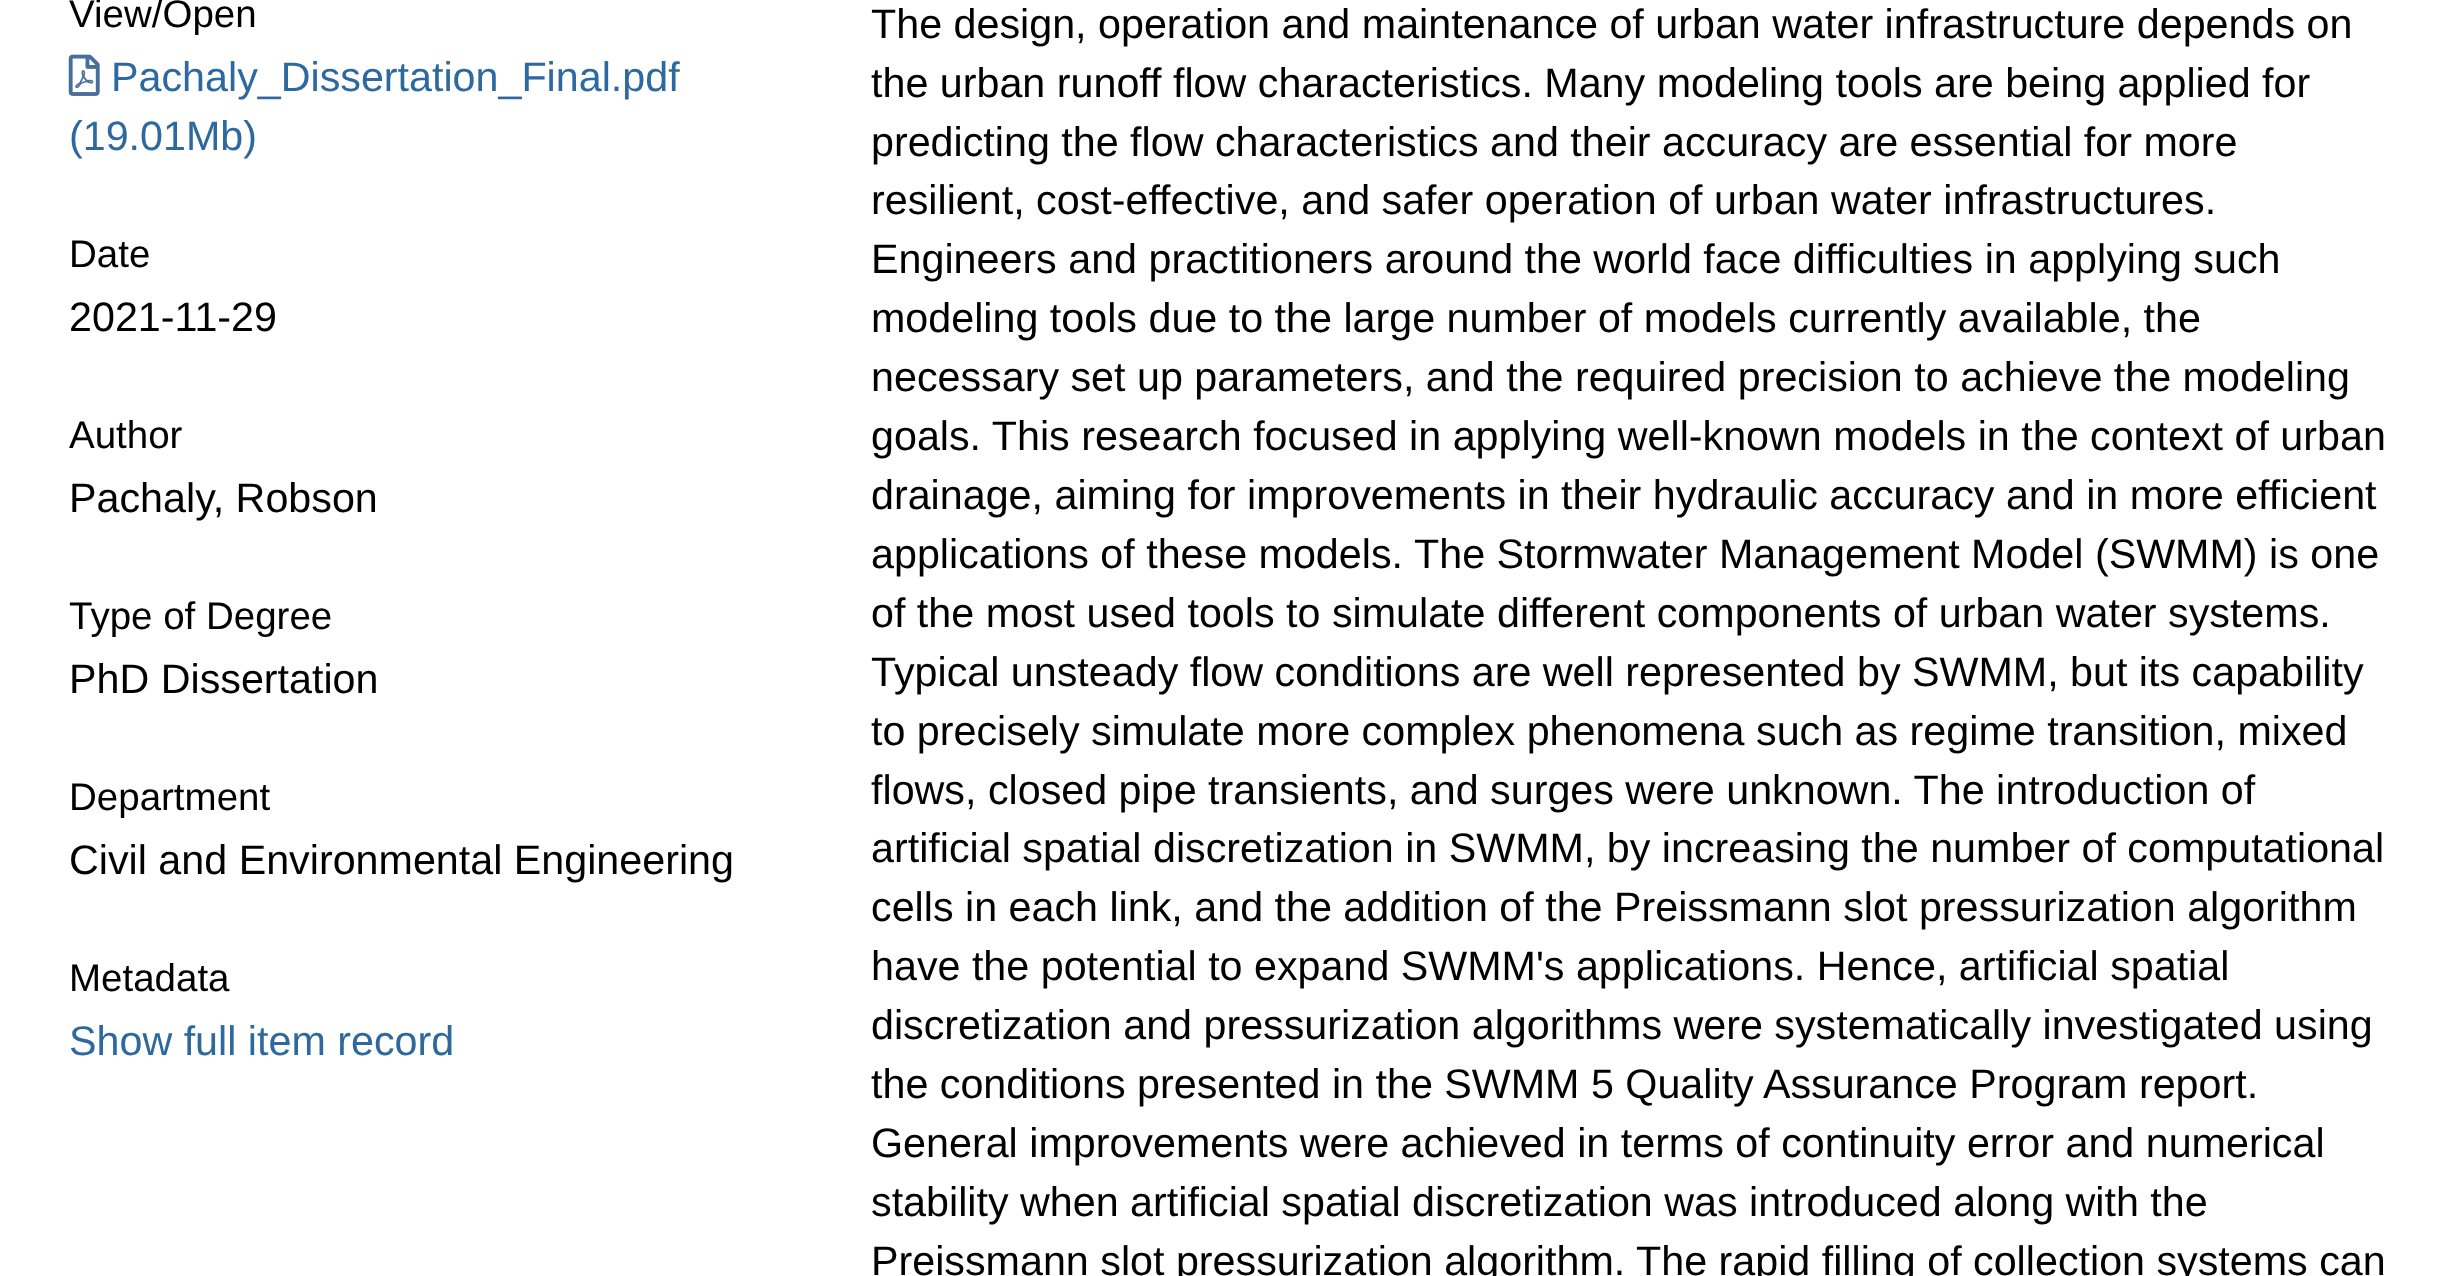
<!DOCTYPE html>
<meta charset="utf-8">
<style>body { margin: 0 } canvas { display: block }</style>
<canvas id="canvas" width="2459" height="1276"></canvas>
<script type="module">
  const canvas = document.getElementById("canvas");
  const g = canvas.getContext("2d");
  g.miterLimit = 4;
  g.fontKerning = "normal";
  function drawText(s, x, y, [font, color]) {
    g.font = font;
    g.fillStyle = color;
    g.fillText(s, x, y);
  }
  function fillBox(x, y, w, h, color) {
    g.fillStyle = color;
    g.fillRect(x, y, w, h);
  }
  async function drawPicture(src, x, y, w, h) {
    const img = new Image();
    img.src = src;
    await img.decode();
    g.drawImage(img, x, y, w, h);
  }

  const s1 = ["38.5px Liberation Sans", "#000000"];
  const s2 = ["41.25px Liberation Sans", "#2D699E"];
  const s3 = ["41.25px Liberation Sans", "#000000"];

  fillBox(0, 0, 2459, 1276, "#FFFFFF");
  drawText("View/Open", 69, 27, s1);
  await drawPicture("pic1.png", 68, 54, 32, 42);
  drawText("Pachaly_Dissertation_Final.pdf", 111, 91, s2);
  drawText("(19.01Mb)", 69, 150, s2);
  drawText("Date", 69, 267, s1);
  drawText("2021-11-29", 69, 331, s3);
  drawText("Author", 69, 448, s1);
  drawText("Pachaly, Robson", 69, 512, s3);
  drawText("Type of Degree", 69, 629, s1);
  drawText("PhD Dissertation", 69, 693, s3);
  drawText("Department", 69, 810, s1);
  drawText("Civil and Environmental Engineering", 69, 874, s3);
  drawText("Metadata", 69, 991, s1);
  drawText("Show full item record", 69, 1055, s2);
  drawText("The design, operation and maintenance of urban water infrastructure depends on", 871, 38, s3);
  drawText("the urban runoff flow characteristics. Many modeling tools are being applied for", 871, 97, s3);
  drawText("predicting the flow characteristics and their accuracy are essential for more", 871, 156, s3);
  drawText("resilient, cost-effective, and safer operation of urban water infrastructures.", 871, 214, s3);
  drawText("Engineers and practitioners around the world face difficulties in applying such", 871, 273, s3);
  drawText("modeling tools due to the large number of models currently available, the", 871, 332, s3);
  drawText("necessary set up parameters, and the required precision to achieve the modeling", 871, 391, s3);
  drawText("goals. This research focused in applying well-known models in the context of urban", 871, 450, s3);
  drawText("drainage, aiming for improvements in their hydraulic accuracy and in more efficient", 871, 509, s3);
  drawText("applications of these models.", 871, 568, s3);
  drawText("The Stormwater Management Model (SWMM) is one", 1414, 568, s3);
  drawText("of the most used tools to simulate different components of urban water systems.", 871, 627, s3);
  drawText("Typical unsteady flow conditions are well represented by SWMM, but its capability", 871, 686, s3);
  drawText("to precisely simulate more complex phenomena such as regime transition, mixed", 871, 745, s3);
  drawText("flows, closed pipe transients, and surges were unknown. The introduction of", 871, 804, s3);
  drawText("artificial spatial discretization in SWMM, by increasing the number of computational", 871, 862, s3);
  drawText("cells in each link, and the addition of the Preissmann slot pressurization algorithm", 871, 921, s3);
  drawText("have the potential to expand SWMM's applications. Hence, artificial spatial", 871, 980, s3);
  drawText("discretization and pressurization algorithms were systematically investigated using", 871, 1039, s3);
  drawText("the conditions presented in the SWMM 5 Quality Assurance Program report.", 871, 1098, s3);
  drawText("General improvements were achieved in terms of continuity error and numerical", 871, 1157, s3);
  drawText("stability when artificial spatial discretization was introduced along with the", 871, 1216, s3);
  drawText("Preissmann slot pressurization algorithm.", 871, 1275, s3);
  drawText("The rapid filling of collection systems can", 1636, 1275, s3);
</script>
